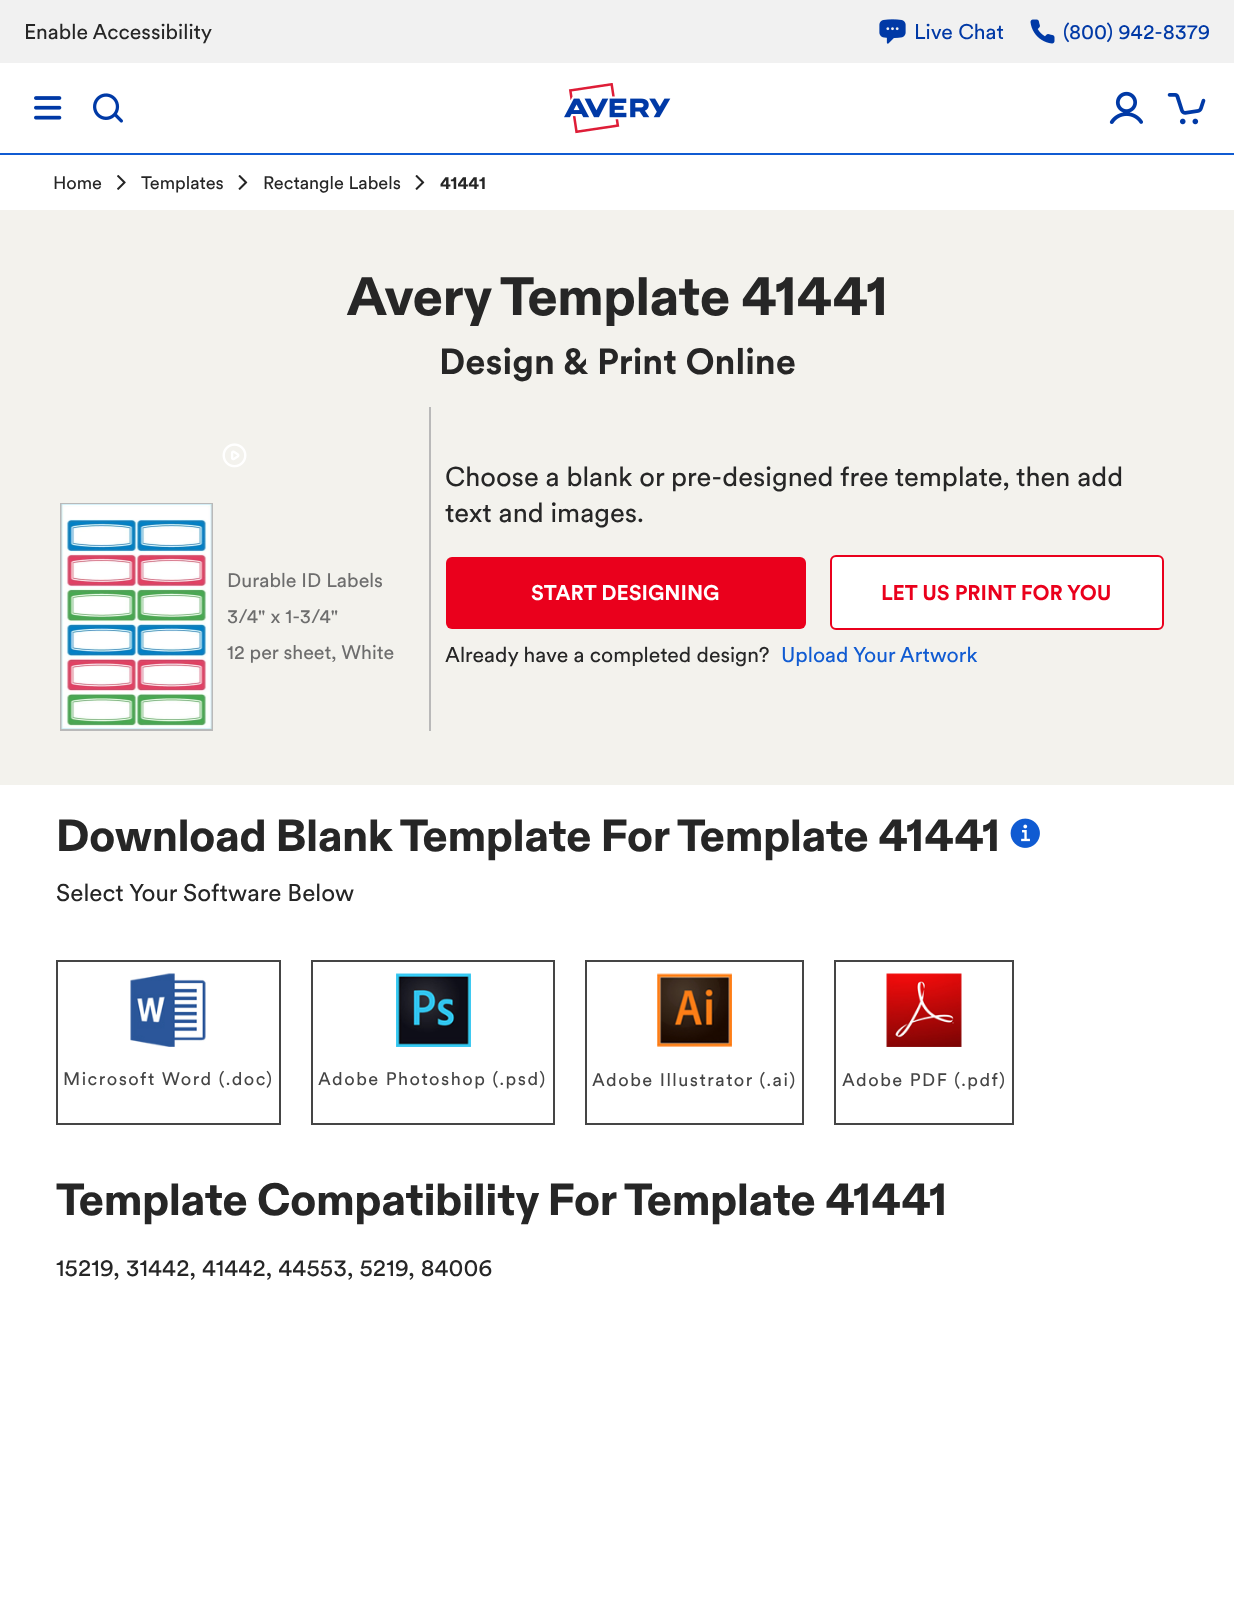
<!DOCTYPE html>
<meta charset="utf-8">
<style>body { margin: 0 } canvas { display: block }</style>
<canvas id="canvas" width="1234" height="1620"></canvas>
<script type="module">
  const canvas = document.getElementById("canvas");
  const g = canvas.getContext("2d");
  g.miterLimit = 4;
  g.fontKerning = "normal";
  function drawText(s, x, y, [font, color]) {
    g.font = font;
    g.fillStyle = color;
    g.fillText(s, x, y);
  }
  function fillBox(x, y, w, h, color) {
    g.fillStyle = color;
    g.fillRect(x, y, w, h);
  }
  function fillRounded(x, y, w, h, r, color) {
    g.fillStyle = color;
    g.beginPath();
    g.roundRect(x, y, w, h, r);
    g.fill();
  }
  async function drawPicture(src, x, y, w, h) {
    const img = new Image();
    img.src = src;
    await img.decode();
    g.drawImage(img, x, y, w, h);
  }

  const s1 = ["21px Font", "#262626"];
  const s2 = ["21px Font", "#0039A6"];
  const s3 = ["18px Font", "#262626"];
  const s4 = ["bold 18px Font", "#262626"];
  const s5 = ["900 54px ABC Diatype", "#262626"];
  const s6 = ["bold 36px Font", "#262626"];
  const s7 = ["19.5px Font", "#6D6D6D"];
  const s8 = ["27px Font", "#262626"];
  const s9 = ["bold 21px Font", "#FFFFFF"];
  const s10 = ["bold 21px Font", "#EA001C"];
  const s11 = ["21px Font", "#105BD2"];
  const s12 = ["900 45px ABC Diatype", "#262626"];
  const s13 = ["24px Font", "#262626"];
  const s14 = ["18px Font", "#454545"];

  fillBox(0, 0, 1234, 1620, "#FFFFFF");
  fillBox(0, 0, 1234, 63, "#F1F1F1");
  drawText("Enable Accessibility", 24, 39, s1);
  await drawPicture("pic1.png", 879, 19, 27, 25);
  drawText("Live Chat", 914, 39, s2);
  await drawPicture("pic2.png", 1030, 19, 25, 25);
  drawText("(800) 942-8379", 1063, 39, s2);
  fillBox(0, 153, 1234, 2, "#105BD2");
  await drawPicture("pic3.png", 34, 96, 28, 24);
  await drawPicture("pic4.png", 93, 93, 30, 30);
  await drawPicture("pic5.png", 564, 83, 107, 51);
  await drawPicture("pic6.png", 1109, 91, 34, 33);
  await drawPicture("pic7.png", 1167, 93, 39, 32);
  drawText("Home", 53, 189, s3);
  await drawPicture("pic8.png", 117, 175, 9, 15);
  drawText("Templates", 141, 189, s3);
  await drawPicture("pic9.png", 238, 175, 10, 15);
  drawText("Rectangle Labels", 263, 189, s3);
  await drawPicture("pic9.png", 415, 175, 10, 15);
  drawText("41441", 440, 189, s4);
  fillBox(0, 210, 1234, 575, "#F3F2ED");
  drawText("Avery", 347, 315, s5);
  drawText("Template 41441", 500, 315, s5);
  drawText("Design & Print Online", 439, 374, s6);
  fillBox(429, 407, 2, 324, "#B9B9B9");
  await drawPicture("pic10.png", 222, 443, 25, 25);
  g.strokeStyle = "#B9B9B9";
  g.lineWidth = 2;
  g.strokeRect(61, 504, 151, 226);
  await drawPicture("pic11.png", 61, 504, 151, 225);
  drawText("Durable ID Labels", 227, 587, s7);
  drawText("3/4\" x 1-3/4\"", 227, 623, s7);
  drawText("12 per sheet, White", 227, 659, s7);
  drawText("Choose a blank or pre-designed free template, then add", 445, 486, s8);
  drawText("text and images.", 445, 522, s8);
  fillRounded(446, 557, 360, 72, 6, "#EA001C");
  drawText("START DESIGNING", 531, 600, s9);
  g.beginPath();
  g.roundRect(831, 556, 332, 73, 5);
  g.fill();
  g.strokeStyle = "#EA001C";
  g.stroke();
  drawText("LET US PRINT FOR YOU", 881, 600, s10);
  drawText("Already have a completed design?", 445, 662, s1);
  drawText("Upload Your Artwork", 781, 662, s11);
  drawText("Download Blank Template For", 56, 851, s12);
  drawText("Template 41441", 677, 851, s12);
  await drawPicture("pic12.png", 1010, 818, 30, 30);
  drawText("Select Your Software Below", 56, 901, s13);
  g.strokeStyle = "#454545";
  g.strokeRect(57, 961, 223, 163);
  await drawPicture("pic13.png", 130, 973, 76, 74);
  g.letterSpacing = "1.5px";
  drawText("Microsoft Word (.doc)", 63, 1085, s14);
  g.strokeRect(312, 961, 242, 163);
  await drawPicture("pic14.png", 396, 973, 75, 74);
  drawText("Adobe Photoshop (.psd)", 318, 1085, s14);
  g.strokeRect(586, 961, 217, 163);
  await drawPicture("pic15.png", 657, 973, 75, 74);
  drawText("Adobe Illustrator (.ai)", 592, 1086, s14);
  g.strokeRect(835, 961, 178, 163);
  await drawPicture("pic16.png", 886, 973, 76, 74);
  drawText("Adobe PDF (.pdf)", 842, 1086, s14);
  g.letterSpacing = "0px";
  drawText("Template Compatibility For", 56, 1215, s12);
  drawText("Template 41441", 624, 1215, s12);
  drawText("15219, 31442, 41442, 44553, 5219, 84006", 56, 1276, s13);
</script>
